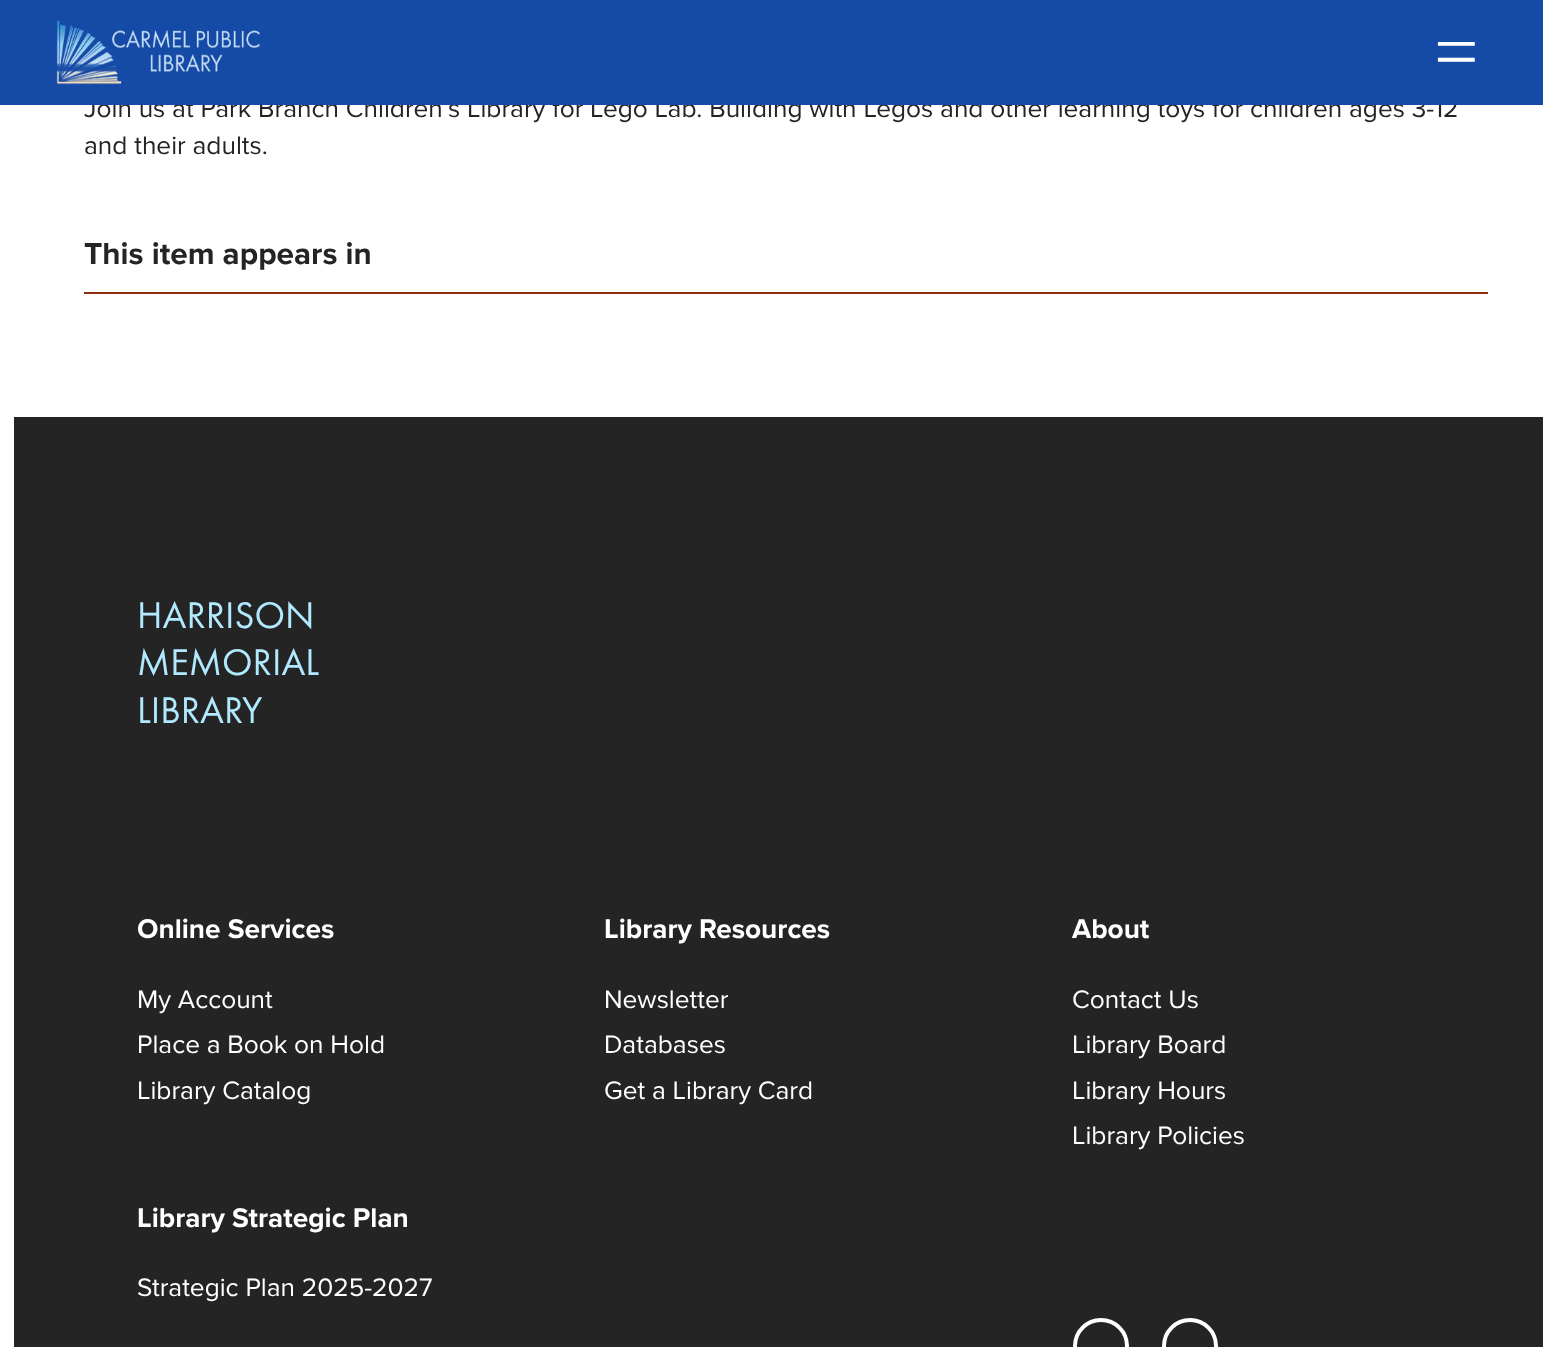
<!DOCTYPE html>
<meta charset="utf-8">
<style>body { margin: 0 } canvas { display: block }</style>
<canvas id="canvas" width="1543" height="1347"></canvas>
<script type="module">
  const canvas = document.getElementById("canvas");
  const g = canvas.getContext("2d");
  g.miterLimit = 4;
  g.fontKerning = "normal";
  function drawText(s, x, y, [font, color]) {
    g.font = font;
    g.fillStyle = color;
    g.fillText(s, x, y);
  }
  function fillBox(x, y, w, h, color) {
    g.fillStyle = color;
    g.fillRect(x, y, w, h);
  }
  async function drawPicture(src, x, y, w, h) {
    const img = new Image();
    img.src = src;
    await img.decode();
    g.drawImage(img, x, y, w, h);
  }

  const s1 = ["26.25px Proxima Nova", "#242424"];
  const s2 = ["79px Liberation Serif", "#FFFFFF"];
  const s3 = ["bold 31.5px Proxima Nova", "#242424"];
  const s4 = ["38.5px Futura PT", "#B1E9FF"];
  const s5 = ["bold 28px Proxima Nova", "#FFFFFF"];
  const s6 = ["26.25px Proxima Nova", "#FFFFFF"];

  fillBox(0, 0, 1543, 1347, "#FFFFFF");
  drawText("Join us at Park Branch Children’s Library for Lego Lab. Building with Legos and other learning toys for children ages 3-12", 84, 117, s1);
  fillBox(0, 0, 1543, 105, "#164AA7");
  await drawPicture("pic1.png", 56, 20, 204, 65);
  drawText("=", 1434, 78, s2);
  drawText("and their adults.", 84, 154, s1);
  fillBox(84, 292, 1404, 2, "#8E2E0B");
  drawText("This item appears in", 84, 264, s3);
  fillBox(14, 417, 1529, 930, "#242424");
  drawText("HARRISON", 137, 628, s4);
  drawText("MEMORIAL", 137, 675, s4);
  drawText("LIBRARY", 137, 723, s4);
  drawText("Online Services", 137, 938, s5);
  drawText("My Account", 137, 1008, s6);
  drawText("Place a Book on Hold", 137, 1053, s6);
  drawText("Library Catalog", 137, 1099, s6);
  drawText("Library Resources", 604, 938, s5);
  drawText("Newsletter", 604, 1008, s6);
  drawText("Databases", 604, 1053, s6);
  drawText("Get a Library Card", 604, 1099, s6);
  drawText("About", 1072, 938, s5);
  drawText("Contact Us", 1072, 1008, s6);
  drawText("Library Board", 1072, 1053, s6);
  drawText("Library Hours", 1072, 1099, s6);
  drawText("Library Policies", 1072, 1144, s6);
  drawText("Library Strategic Plan", 137, 1227, s5);
  drawText("Strategic Plan 2025-2027", 137, 1296, s6);
  g.beginPath();
  g.arc(1101, 1346, 26, 0, Math.PI * 2);
  g.strokeStyle = "#FFFFFF";
  g.lineWidth = 4;
  g.stroke();
  g.beginPath();
  g.arc(1190, 1346, 26, 0, Math.PI * 2);
  g.stroke();
</script>
